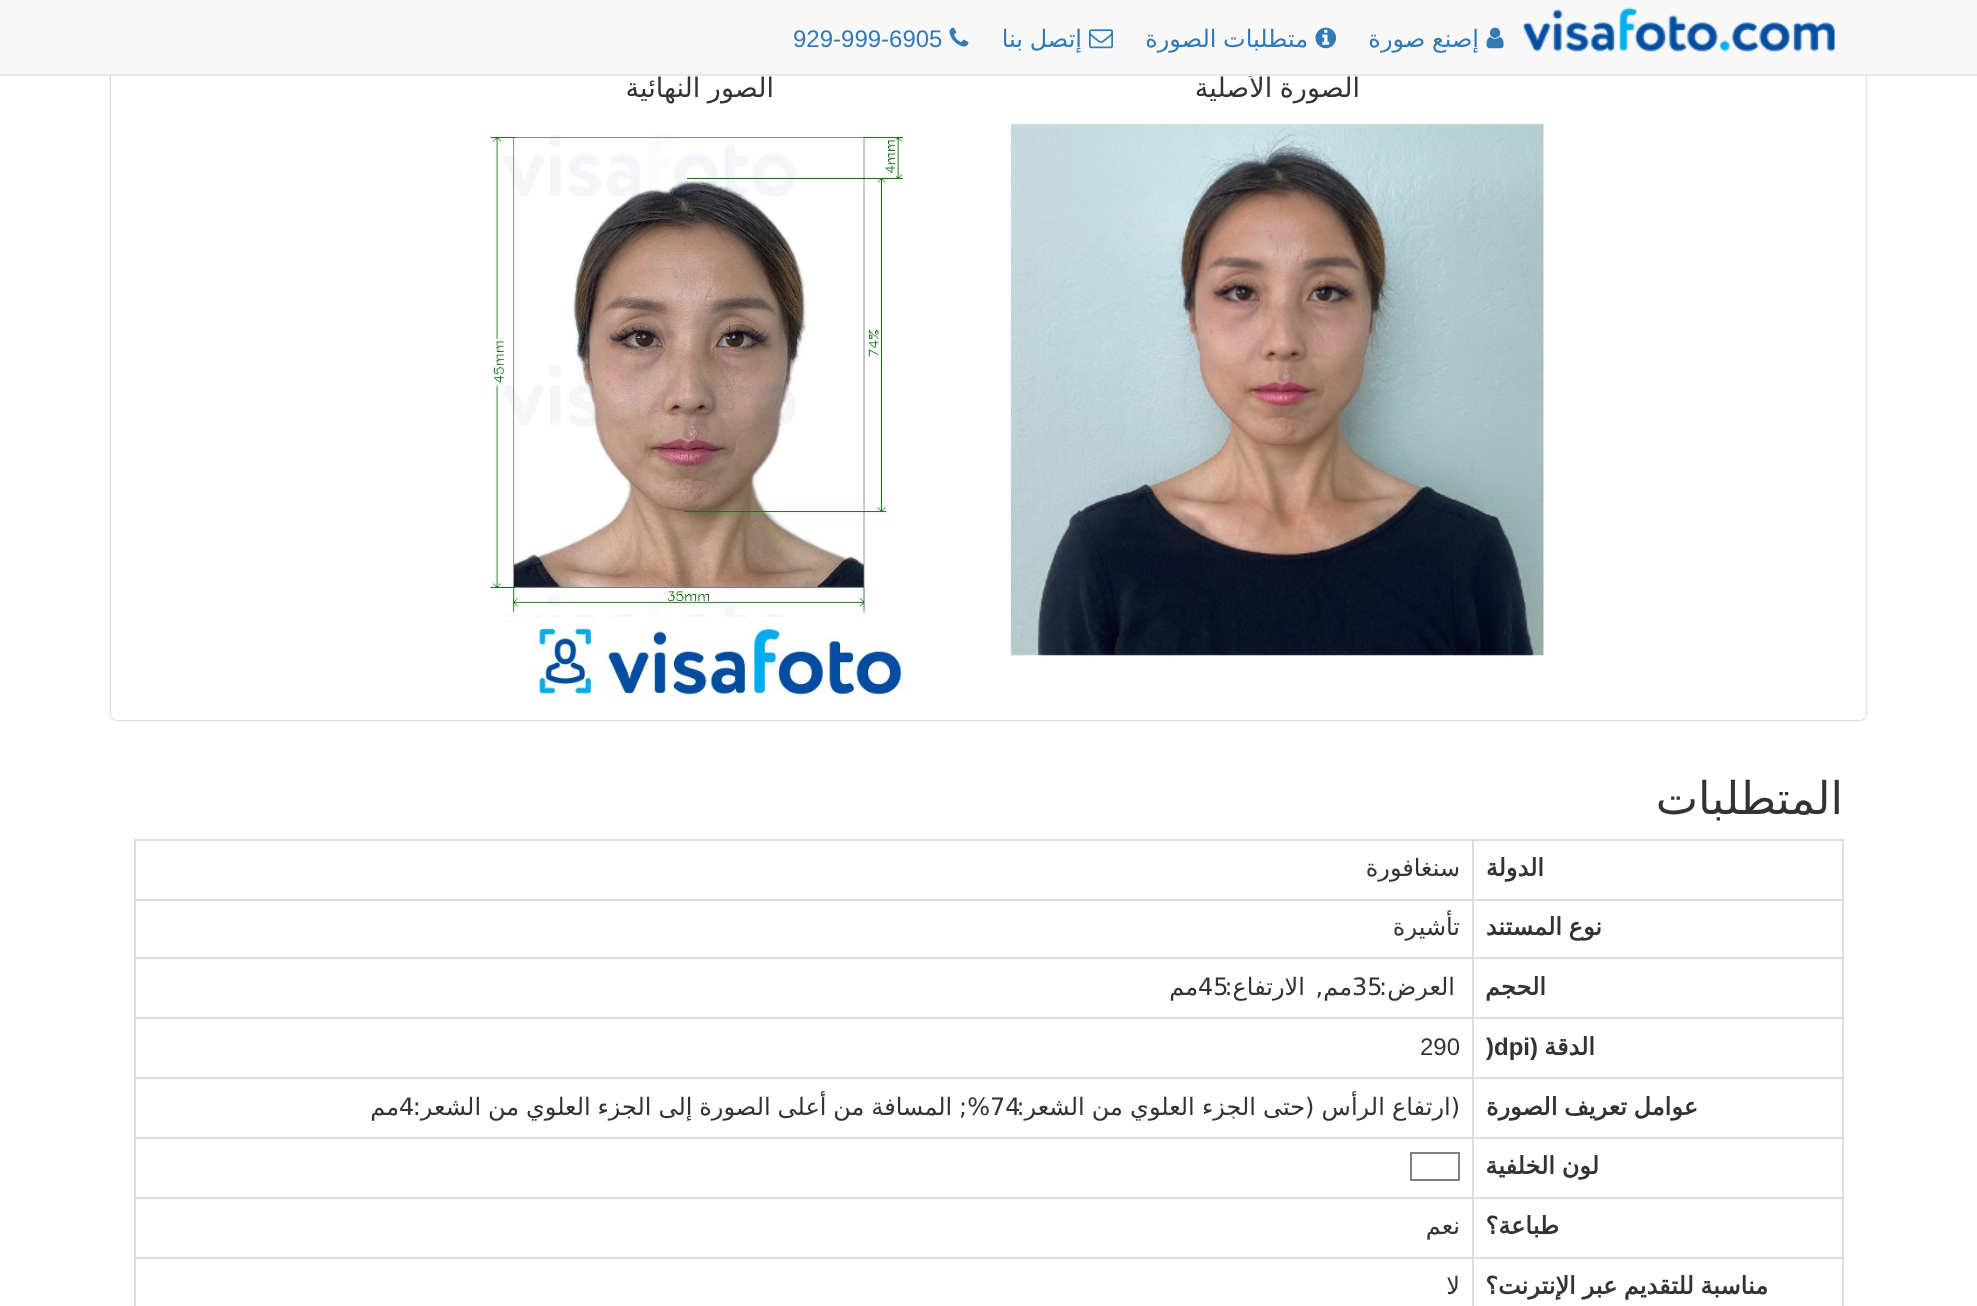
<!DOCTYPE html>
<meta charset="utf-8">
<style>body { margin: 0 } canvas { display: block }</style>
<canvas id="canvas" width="1977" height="1306"></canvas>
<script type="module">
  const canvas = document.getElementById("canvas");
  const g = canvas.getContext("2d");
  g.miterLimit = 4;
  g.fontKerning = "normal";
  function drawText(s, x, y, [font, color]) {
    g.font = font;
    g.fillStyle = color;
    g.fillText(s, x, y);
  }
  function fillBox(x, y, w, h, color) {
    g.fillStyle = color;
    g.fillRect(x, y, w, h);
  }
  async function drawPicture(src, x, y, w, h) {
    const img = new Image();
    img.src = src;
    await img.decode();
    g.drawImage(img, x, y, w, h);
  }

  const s1 = ["27px DejaVu Sans", "#333333"];
  const s2 = ["24px DejaVu Sans", "#337AB7"];
  const s3 = ["24px Liberation Sans", "#337AB7"];
  const s4 = ["45px DejaVu Sans", "#333333"];
  const s5 = ["bold 24px DejaVu Sans", "#333333"];
  const s6 = ["24px DejaVu Sans", "#333333"];
  const s7 = ["bold 24px Liberation Sans", "#333333"];
  const s8 = ["24px Liberation Sans", "#333333"];

  fillBox(0, 0, 1977, 1306, "#FFFFFF");
  g.save();
  g.beginPath();
  g.moveTo(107, 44);
  g.lineTo(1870, 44);
  g.lineTo(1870, 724);
  g.lineTo(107, 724);
  g.closePath();
  g.moveTo(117, 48);
  g.lineTo(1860, 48);
  g.bezierCurveTo(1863.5, 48, 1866, 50.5, 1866, 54);
  g.lineTo(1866, 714);
  g.bezierCurveTo(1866, 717.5, 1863.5, 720, 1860, 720);
  g.lineTo(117, 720);
  g.bezierCurveTo(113.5, 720, 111, 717.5, 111, 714);
  g.lineTo(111, 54);
  g.bezierCurveTo(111, 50.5, 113.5, 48, 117, 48);
  g.closePath();
  g.clip("evenodd");
  g.fillStyle = "#A0A0A0";
  g.filter = "blur(1px)";
  g.beginPath();
  g.roundRect(111, 48, 1755, 672, 6);
  g.fill();
  g.filter = "none";
  g.restore();
  g.wordSpacing = "-1px";
  g.direction = "rtl";
  drawText("الصورة الأصلية", 1360, 97, s1);
  fillBox(0, 0, 1977, 74, "#F8F8F8");
  fillBox(0, 74, 1977, 2, "#E7E7E7");
  await drawPicture("pic1.png", 1522, 7, 313, 46);
  await drawPicture("pic2.png", 1486, 27, 18, 22);
  drawText("إصنع صورة", 1479, 47, s2);
  await drawPicture("pic3.png", 1315, 27, 22, 22);
  drawText("متطلبات الصورة", 1308, 47, s2);
  await drawPicture("pic4.png", 1089, 29, 24, 20);
  drawText("إتصل بنا", 1082, 47, s2);
  await drawPicture("pic5.png", 949, 27, 20, 20);
  g.wordSpacing = "0px";
  g.direction = "ltr";
  drawText("929-999-6905", 793, 47, s3);
  await drawPicture("pic6.png", 1011, 119, 533, 539);
  g.wordSpacing = "-1px";
  g.direction = "rtl";
  drawText("الصور النهائية", 774, 97, s1);
  await drawPicture("pic7.png", 490, 132, 419, 570);
  g.wordSpacing = "0px";
  drawText("المتطلبات", 1843, 814, s4);
  fillBox(134, 839, 1710, 2, "#DDDDDD");
  fillBox(1842, 839, 2, 467, "#DDDDDD");
  fillBox(134, 839, 2, 467, "#DDDDDD");
  drawText("الدولة", 1544, 876, s5);
  fillBox(134, 899, 1339, 2, "#DDDDDD");
  fillBox(134, 957, 1339, 2, "#DDDDDD");
  fillBox(134, 1017, 1339, 2, "#DDDDDD");
  fillBox(134, 1077, 1339, 2, "#DDDDDD");
  fillBox(134, 1137, 1339, 2, "#DDDDDD");
  fillBox(134, 1197, 1339, 2, "#DDDDDD");
  fillBox(134, 1257, 1339, 2, "#DDDDDD");
  fillBox(1472, 1257, 2, 49, "#DDDDDD");
  fillBox(1472, 1257, 372, 2, "#DDDDDD");
  fillBox(1472, 1197, 2, 62, "#DDDDDD");
  fillBox(1472, 1197, 372, 2, "#DDDDDD");
  fillBox(1472, 1137, 2, 62, "#DDDDDD");
  fillBox(1472, 1137, 372, 2, "#DDDDDD");
  fillBox(1472, 1077, 2, 62, "#DDDDDD");
  fillBox(1472, 1077, 372, 2, "#DDDDDD");
  fillBox(1472, 1017, 2, 62, "#DDDDDD");
  fillBox(1472, 1017, 372, 2, "#DDDDDD");
  fillBox(1472, 957, 2, 62, "#DDDDDD");
  fillBox(1472, 957, 372, 2, "#DDDDDD");
  fillBox(1472, 899, 2, 60, "#DDDDDD");
  fillBox(1472, 899, 372, 2, "#DDDDDD");
  fillBox(1472, 839, 2, 61, "#DDDDDD");
  drawText("سنغافورة", 1460, 876, s6);
  g.wordSpacing = "-1px";
  drawText("نوع المستند", 1602, 935, s5);
  g.wordSpacing = "0px";
  drawText("تأشيرة", 1460, 935, s6);
  drawText("الحجم", 1546, 995, s5);
  drawText("العرض:", 1455, 995, s6);
  g.direction = "ltr";
  drawText("35", 1352, 995, s6);
  g.wordSpacing = "3px";
  g.direction = "rtl";
  drawText("مم, الارتفاع:", 1352, 995, s6);
  g.wordSpacing = "0px";
  g.direction = "ltr";
  drawText("45", 1198, 995, s6);
  g.direction = "rtl";
  drawText("مم", 1198, 995, s6);
  drawText("الدقة", 1595, 1055, s5);
  drawText("(", 1538, 1055, s7);
  g.direction = "ltr";
  drawText(")dpi", 1486, 1055, s7);
  drawText("290", 1420, 1055, s8);
  g.wordSpacing = "-1px";
  g.direction = "rtl";
  drawText("عوامل تعريف الصورة", 1698, 1115, s5);
  g.wordSpacing = "-0.75px";
  drawText("%; المسافة من أعلى الصورة إلى الجزء العلوي من الشعر:", 990, 1115, s6);
  g.wordSpacing = "0px";
  g.direction = "ltr";
  drawText("74", 990, 1115, s6);
  g.wordSpacing = "-0.5px";
  g.direction = "rtl";
  drawText("(ارتفاع الرأس (حتى الجزء العلوي من الشعر:", 1460, 1115, s6);
  g.wordSpacing = "0px";
  g.direction = "ltr";
  drawText("4", 399, 1115, s6);
  g.direction = "rtl";
  drawText("مم", 399, 1115, s6);
  g.wordSpacing = "-1px";
  drawText("لون الخلفية", 1599, 1174, s5);
  g.strokeStyle = "#808080";
  g.lineWidth = 2;
  g.strokeRect(1411, 1153, 48, 27);
  g.wordSpacing = "0px";
  drawText("طباعة؟", 1559, 1234, s5);
  drawText("نعم", 1460, 1234, s6);
  g.wordSpacing = "-1px";
  drawText("مناسبة للتقديم عبر الإنترنت؟", 1768, 1294, s5);
  g.wordSpacing = "0px";
  drawText("لا", 1460, 1294, s6);
</script>
